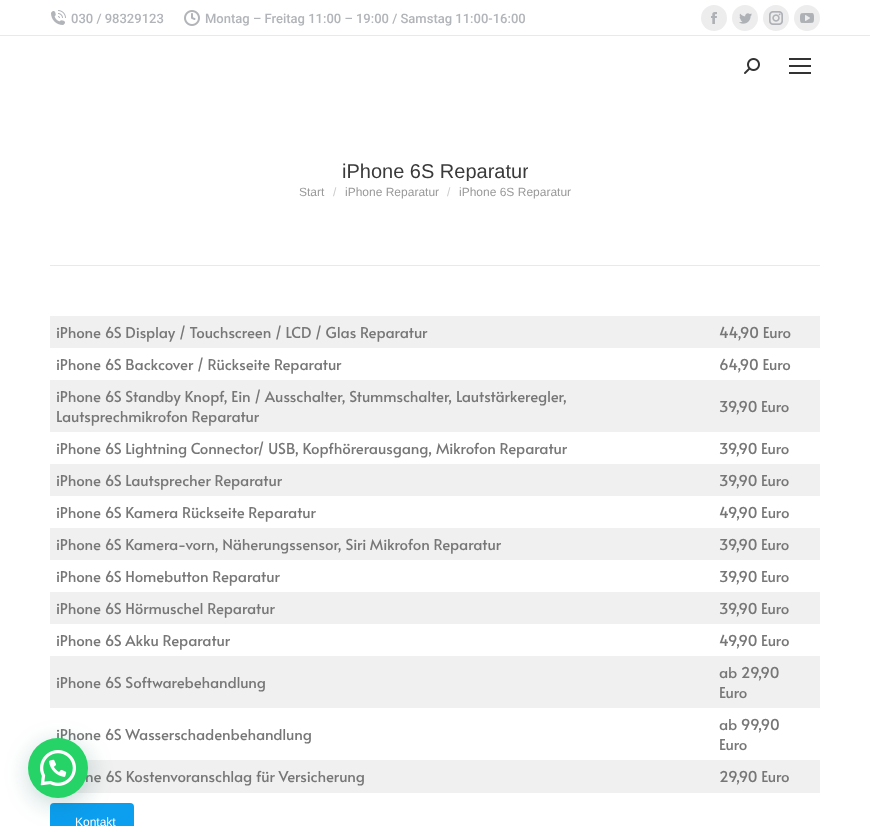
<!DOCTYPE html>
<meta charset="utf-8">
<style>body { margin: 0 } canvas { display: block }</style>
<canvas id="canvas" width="870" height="826"></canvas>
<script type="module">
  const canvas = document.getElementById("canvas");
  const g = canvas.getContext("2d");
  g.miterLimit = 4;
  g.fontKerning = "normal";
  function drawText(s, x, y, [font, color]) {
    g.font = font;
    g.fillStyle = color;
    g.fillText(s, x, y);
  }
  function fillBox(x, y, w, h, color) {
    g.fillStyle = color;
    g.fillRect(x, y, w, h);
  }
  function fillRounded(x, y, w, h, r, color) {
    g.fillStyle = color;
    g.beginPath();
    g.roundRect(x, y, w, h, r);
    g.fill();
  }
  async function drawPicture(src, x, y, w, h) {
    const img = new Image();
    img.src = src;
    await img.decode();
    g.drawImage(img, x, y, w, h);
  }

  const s1 = ["500 13px Roboto", "#B1B4B8"];
  const s2 = ["20px Liberation Sans", "#3A3A3A"];
  const s3 = ["12px Liberation Sans", "#999999"];
  const s4 = ["12px Liberation Sans", "#CCCCCC"];
  const s5 = ["15px Alata", "#777777"];
  const s6 = ["12px Liberation Sans", "#FFFFFF"];

  fillBox(0, 0, 870, 826, "#FFFFFF");
  await drawPicture("pic1.png", 51, 10, 15, 15);
  drawText("030 / 98329123", 71, 23, s1);
  await drawPicture("pic2.png", 184, 10, 16, 16);
  drawText("Montag – Freitag 11:00 – 19:00 / Samstag 11:00-16:00", 205, 23, s1);
  g.fillStyle = "#EDEDED";
  g.beginPath();
  g.arc(714, 18, 13, 0, Math.PI * 2);
  g.fill();
  await drawPicture("pic3.png", 711, 12, 6, 12);
  g.beginPath();
  g.arc(745, 18, 13, 0, Math.PI * 2);
  g.fill();
  await drawPicture("pic4.png", 739, 13, 13, 11);
  g.beginPath();
  g.arc(776, 18, 13, 0, Math.PI * 2);
  g.fill();
  await drawPicture("pic5.png", 769, 11, 14, 14);
  g.beginPath();
  g.arc(807, 18, 13, 0, Math.PI * 2);
  g.fill();
  await drawPicture("pic6.png", 800, 13, 14, 10);
  fillBox(0, 35, 870, 1, "#E9E9E9");
  await drawPicture("pic7.png", 744, 58, 16, 16);
  fillBox(789, 58, 22, 2, "#333333");
  fillBox(789, 65, 22, 2, "#333333");
  fillBox(789, 72, 22, 2, "#333333");
  g.save();
  g.beginPath();
  g.rect(342, 161, 186, 20);
  g.clip();
  drawText("iPhone 6S Reparatur", 342, 178, s2);
  g.restore();
  drawText("Start", 299, 196, s3);
  drawText("/", 333, 196, s4);
  drawText("iPhone Reparatur", 345, 196, s3);
  drawText("/", 447, 196, s4);
  drawText("iPhone 6S Reparatur", 459, 196, s3);
  fillBox(50, 265, 770, 1, "#E9E9E9");
  fillBox(74, 792, 746, 1, "#F0F0F0");
  fillBox(50, 316, 770, 32, "#F0F0F0");
  drawText("iPhone 6S Display / Touchscreen / LCD / Glas Reparatur", 56, 338, s5);
  drawText("44,90 Euro", 719, 338, s5);
  drawText("iPhone 6S Backcover / Rückseite Reparatur", 56, 370, s5);
  drawText("64,90 Euro", 719, 370, s5);
  fillBox(50, 380, 770, 52, "#F0F0F0");
  drawText("iPhone 6S Standby Knopf, Ein / Ausschalter, Stummschalter, Lautstärkeregler,", 56, 402, s5);
  drawText("Lautsprechmikrofon Reparatur", 56, 422, s5);
  drawText("39,90 Euro", 719, 412, s5);
  drawText("iPhone 6S Lightning Connector/ USB, Kopfhörerausgang, Mikrofon Reparatur", 56, 454, s5);
  drawText("39,90 Euro", 719, 454, s5);
  fillBox(50, 464, 770, 32, "#F0F0F0");
  drawText("iPhone 6S Lautsprecher Reparatur", 56, 486, s5);
  drawText("39,90 Euro", 719, 486, s5);
  drawText("iPhone 6S Kamera Rückseite Reparatur", 56, 518, s5);
  drawText("49,90 Euro", 719, 518, s5);
  fillBox(50, 528, 770, 32, "#F0F0F0");
  drawText("iPhone 6S Kamera-vorn, Näherungssensor, Siri Mikrofon Reparatur", 56, 550, s5);
  drawText("39,90 Euro", 719, 550, s5);
  drawText("iPhone 6S Homebutton Reparatur", 56, 582, s5);
  drawText("39,90 Euro", 719, 582, s5);
  fillBox(50, 592, 770, 32, "#F0F0F0");
  drawText("iPhone 6S Hörmuschel Reparatur", 56, 614, s5);
  drawText("39,90 Euro", 719, 614, s5);
  drawText("iPhone 6S Akku Reparatur", 56, 646, s5);
  drawText("49,90 Euro", 719, 646, s5);
  fillBox(50, 656, 770, 52, "#F0F0F0");
  drawText("iPhone 6S Softwarebehandlung", 56, 688, s5);
  drawText("ab 29,90", 719, 678, s5);
  drawText("Euro", 719, 698, s5);
  drawText("iPhone 6S Wasserschadenbehandlung", 56, 740, s5);
  drawText("ab 99,90", 719, 730, s5);
  drawText("Euro", 719, 750, s5);
  fillBox(76, 760, 744, 32, "#F0F0F0");
  drawText("ne 6S Kostenvoranschlag für Versicherung", 85, 782, s5);
  drawText("29,90 Euro", 719, 782, s5);
  fillRounded(50, 803, 84, 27, 4, "#0C9EEF");
  drawText("Kontakt", 75, 826, s6);
  g.fillStyle = "rgba(7, 94, 84, 0.24)";
  g.filter = "blur(12px)";
  g.beginPath();
  g.roundRect(29, 744, 60, 60, 30);
  g.fill();
  g.filter = "none";
  g.fillStyle = "#25D366";
  g.beginPath();
  g.arc(58, 768, 30, 0, Math.PI * 2);
  g.fill();
  await drawPicture("pic8.png", 40, 750, 36, 36);
</script>
